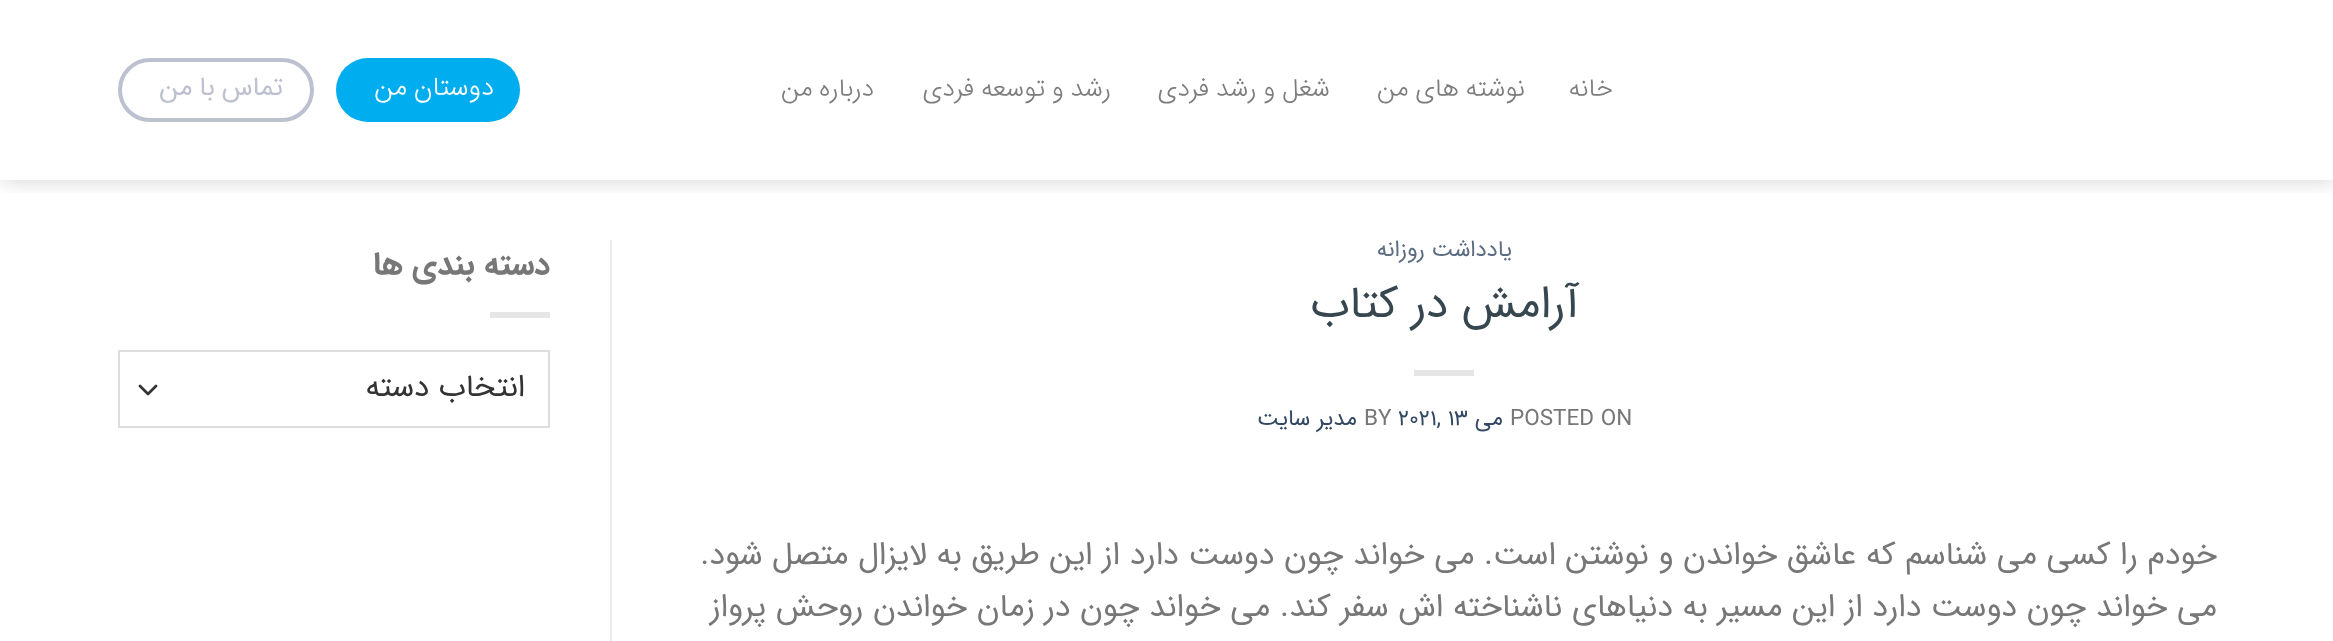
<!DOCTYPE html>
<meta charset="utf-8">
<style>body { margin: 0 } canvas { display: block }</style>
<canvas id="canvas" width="2333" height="641"></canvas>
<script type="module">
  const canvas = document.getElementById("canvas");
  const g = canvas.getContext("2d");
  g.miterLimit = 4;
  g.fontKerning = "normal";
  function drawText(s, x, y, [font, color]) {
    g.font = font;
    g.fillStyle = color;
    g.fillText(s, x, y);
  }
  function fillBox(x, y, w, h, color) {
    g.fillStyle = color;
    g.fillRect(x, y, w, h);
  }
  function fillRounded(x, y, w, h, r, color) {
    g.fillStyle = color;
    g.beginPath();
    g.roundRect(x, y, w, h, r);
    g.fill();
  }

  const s1 = ["300 25.5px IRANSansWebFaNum", "#7D7D7D"];
  const s2 = ["300 26.5px IRANSansWebFaNum", "#FFFFFF"];
  const s3 = ["26.5px IRANSansWebFaNum", "#BCC0CF"];
  const s4 = ["22.5px IRANSansWebFaNum", "#5C6D81"];
  const s5 = ["44.75px IRANSansWebFaNum", "#37474F"];
  const s6 = ["22.5px IRANSansWebFaNum", "#777777"];
  const s7 = ["22.5px IRANSansWebFaNum", "#334862"];
  const s8 = ["32px IRANSansWebFaNum", "#777777"];
  const s9 = ["bold 32px IRANSansWebFaNum", "#777777"];
  const s10 = ["31px IRANSansWebFaNum", "#333333"];

  fillBox(0, 0, 2333, 641, "#FFFFFF");
  g.save();
  g.beginPath();
  g.rect(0, 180, 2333, 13);
  g.clip();
  g.fillStyle = "rgba(0, 0, 0, 0.15)";
  g.filter = "blur(10px)";
  g.beginPath();
  g.rect(2, 2, 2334, 180);
  g.fill();
  g.filter = "none";
  g.restore();
  g.letterSpacing = "0.5px";
  g.direction = "rtl";
  drawText("خانه", 1613, 96, s1);
  g.wordSpacing = "-1.5px";
  drawText("نوشته های من", 1525, 96, s1);
  drawText("شغل و رشد فردی", 1330, 96, s1);
  drawText("رشد و توسعه فردی", 1111, 96, s1);
  drawText("درباره من", 874, 96, s1);
  fillRounded(336, 58, 184, 64, 32, "#00ADEF");
  g.letterSpacing = "0.75px";
  g.wordSpacing = "-2px";
  drawText("دوستان من", 494, 95, s2);
  g.beginPath();
  g.roundRect(120, 60, 192, 60, 30);
  g.strokeStyle = "#BCC0CF";
  g.lineWidth = 4;
  g.stroke();
  drawText("تماس با من", 283, 95, s3);
  g.letterSpacing = "0px";
  g.wordSpacing = "0px";
  drawText("یادداشت روزانه", 1512, 256, s4);
  drawText("آرامش در کتاب", 1579, 317, s5);
  fillBox(1414, 370, 60, 6, "#E6E6E6");
  g.direction = "ltr";
  drawText("POSTED ON", 1510, 425, s6);
  g.direction = "rtl";
  drawText("می", 1503, 425, s7);
  g.direction = "ltr";
  drawText("2021, 13", 1398, 425, s7);
  drawText("BY", 1364, 425, s6);
  g.direction = "rtl";
  drawText("مدیر سایت", 1357, 425, s7);
  drawText("خودم را کسی می شناسم که عاشق خواندن و نوشتن است. می خواند چون دوست دارد از این طریق به لایزال متصل شود.", 2217, 564, s8);
  drawText("می خواند چون دوست دارد از این مسیر به دنیاهای ناشناخته اش سفر کند. می خواند چون در زمان خواندن روحش پرواز", 2217, 616, s8);
  fillBox(610, 240, 2, 401, "#ECECEC");
  drawText("دسته بندی ها", 550, 274, s9);
  fillBox(490, 312, 60, 6, "#E6E6E6");
  g.beginPath();
  g.moveTo(140, 386);
  g.lineTo(148, 394);
  g.lineTo(156, 386);
  g.strokeStyle = "#333333";
  g.lineWidth = 2.7;
  g.lineCap = "round";
  g.lineJoin = "round";
  g.stroke();
  g.strokeStyle = "#DDDDDD";
  g.lineWidth = 2;
  g.lineJoin = "miter";
  g.strokeRect(119, 351, 430, 76);
  drawText("انتخاب دسته", 525, 396, s10);
</script>
